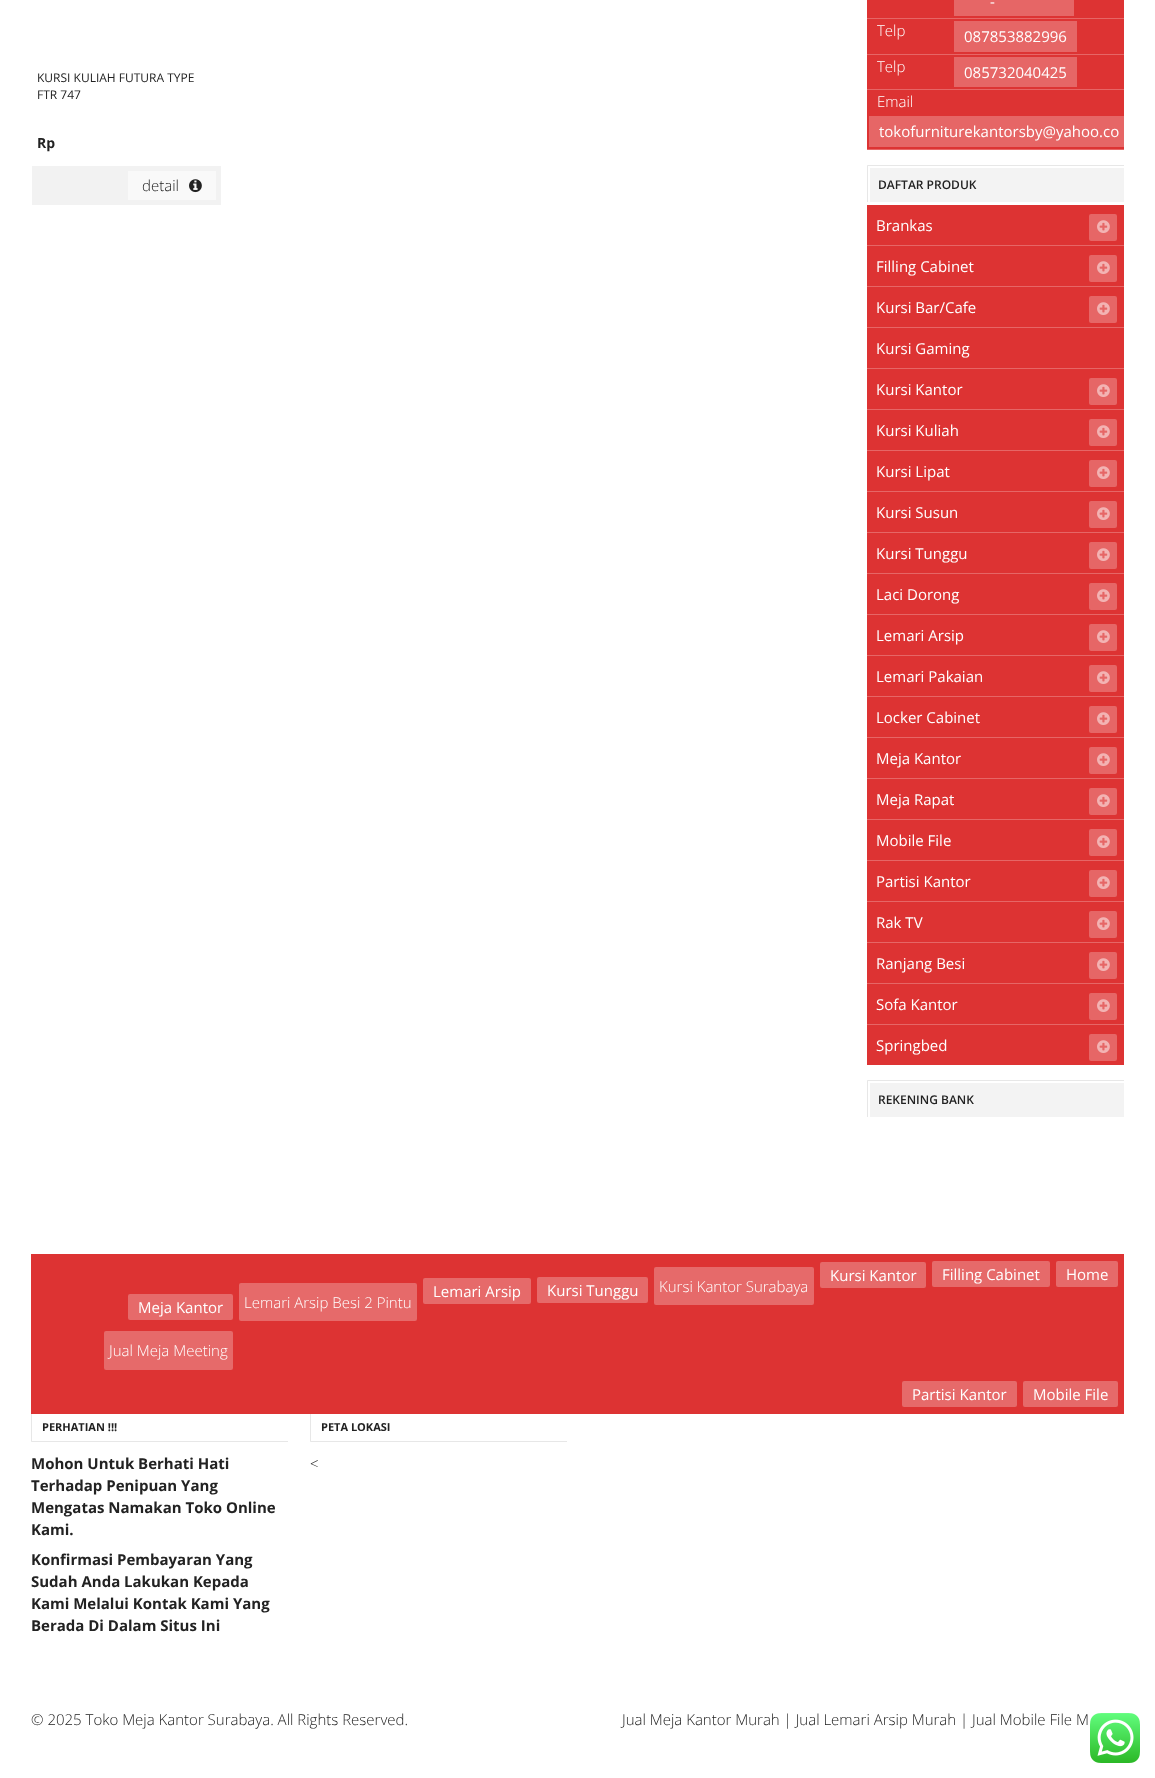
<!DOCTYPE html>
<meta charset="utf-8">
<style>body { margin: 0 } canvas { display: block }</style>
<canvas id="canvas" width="1155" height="1778"></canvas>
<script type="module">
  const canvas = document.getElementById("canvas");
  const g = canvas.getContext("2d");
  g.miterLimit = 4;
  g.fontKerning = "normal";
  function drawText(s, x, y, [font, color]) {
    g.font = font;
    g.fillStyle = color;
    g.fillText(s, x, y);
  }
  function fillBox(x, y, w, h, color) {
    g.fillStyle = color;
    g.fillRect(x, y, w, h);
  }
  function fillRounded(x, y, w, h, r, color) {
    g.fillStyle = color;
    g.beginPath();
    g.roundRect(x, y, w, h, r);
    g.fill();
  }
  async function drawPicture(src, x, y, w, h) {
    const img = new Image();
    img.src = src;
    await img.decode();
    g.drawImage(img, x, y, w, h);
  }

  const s1 = ["12px Open Sans", "#222222"];
  const s2 = ["bold 14px Open Sans", "#222222"];
  const s3 = ["300 15px Open Sans", "#222222"];
  const s4 = ["15px Open Sans", "#FFFFFF"];
  const s5 = ["300 15px Open Sans", "#FFFFFF"];
  const s6 = ["600 12px Open Sans", "#222222"];
  const s7 = ["bold 11px Open Sans", "#222222"];
  const s8 = ["bold 15px Open Sans", "#222222"];

  fillBox(0, 0, 1155, 1778, "#FFFFFF");
  drawText("KURSI KULIAH FUTURA TYPE", 37, 82, s1);
  drawText("FTR 747", 37, 99, s1);
  drawText("Rp", 37, 148, s2);
  fillBox(32, 166, 189, 39, "#F2F2F2");
  fillBox(128, 171, 88, 29, "#F9F9F9");
  drawText("detail", 142, 191, s3);
  await drawPicture("pic1.png", 189, 179, 13, 14);
  fillBox(867, 0, 257, 18, "#DD3333");
  fillBox(867, 18, 257, 1, "#E66666");
  fillBox(954, 0, 120, 16, "#E66666");
  drawText("-", 990, 7, s4);
  fillBox(867, 19, 257, 35, "#DD3333");
  fillBox(867, 54, 257, 1, "#E66666");
  drawText("Telp", 877, 36, s5);
  fillBox(954, 21, 123, 31, "#E66666");
  drawText("087853882996", 964, 42, s4);
  fillBox(867, 55, 257, 34, "#DD3333");
  fillBox(867, 89, 257, 1, "#E66666");
  drawText("Telp", 877, 72, s5);
  fillBox(954, 57, 123, 30, "#E66666");
  drawText("085732040425", 964, 78, s4);
  fillBox(867, 90, 257, 59, "#DD3333");
  fillBox(869, 116, 255, 31, "#E66666");
  fillBox(867, 149, 257, 1, "#E66666");
  drawText("Email", 877, 107, s5);
  drawText("tokofurniturekantorsby@yahoo.co", 879, 137, s4);
  g.fillStyle = "#E7E7E7";
  g.beginPath();
  g.moveTo(867, 165);
  g.lineTo(1124, 165);
  g.lineTo(1124, 166);
  g.lineTo(868, 166);
  g.closePath();
  g.fill();
  g.fillStyle = "rgba(221, 221, 221, 0.7)";
  g.beginPath();
  g.moveTo(867, 202);
  g.lineTo(867, 165);
  g.lineTo(868, 166);
  g.lineTo(868, 202);
  g.closePath();
  g.fill();
  fillBox(870, 168, 254, 34, "#F3F3F3");
  drawText("DAFTAR PRODUK", 878, 189, s6);
  fillBox(867, 205, 257, 860, "#DD3333");
  fillBox(867, 245, 257, 1, "#E66666");
  drawText("Brankas", 876, 231, s4);
  fillRounded(1089, 214, 28, 27, 2, "#E66666");
  await drawPicture("pic2.png", 1097, 220, 13, 13);
  fillBox(867, 286, 257, 1, "#E66666");
  drawText("Filling Cabinet", 876, 272, s4);
  fillRounded(1089, 255, 28, 27, 2, "#E66666");
  await drawPicture("pic2.png", 1097, 261, 13, 13);
  fillBox(867, 327, 257, 1, "#E66666");
  drawText("Kursi Bar/Cafe", 876, 313, s4);
  fillRounded(1089, 296, 28, 27, 2, "#E66666");
  await drawPicture("pic2.png", 1097, 302, 13, 13);
  fillBox(867, 368, 257, 1, "#E66666");
  drawText("Kursi Gaming", 876, 354, s4);
  fillBox(867, 409, 257, 1, "#E66666");
  drawText("Kursi Kantor", 876, 395, s4);
  fillRounded(1089, 378, 28, 27, 2, "#E66666");
  await drawPicture("pic2.png", 1097, 384, 13, 13);
  fillBox(867, 450, 257, 1, "#E66666");
  drawText("Kursi Kuliah", 876, 436, s4);
  fillRounded(1089, 419, 28, 27, 2, "#E66666");
  await drawPicture("pic2.png", 1097, 425, 13, 13);
  fillBox(867, 491, 257, 1, "#E66666");
  drawText("Kursi Lipat", 876, 477, s4);
  fillRounded(1089, 460, 28, 27, 2, "#E66666");
  await drawPicture("pic2.png", 1097, 466, 13, 13);
  fillBox(867, 532, 257, 1, "#E66666");
  drawText("Kursi Susun", 876, 518, s4);
  fillRounded(1089, 501, 28, 27, 2, "#E66666");
  await drawPicture("pic2.png", 1097, 507, 13, 13);
  fillBox(867, 573, 257, 1, "#E66666");
  drawText("Kursi Tunggu", 876, 559, s4);
  fillRounded(1089, 542, 28, 27, 2, "#E66666");
  await drawPicture("pic2.png", 1097, 548, 13, 13);
  fillBox(867, 614, 257, 1, "#E66666");
  drawText("Laci Dorong", 876, 600, s4);
  fillRounded(1089, 583, 28, 27, 2, "#E66666");
  await drawPicture("pic2.png", 1097, 589, 13, 13);
  fillBox(867, 655, 257, 1, "#E66666");
  drawText("Lemari Arsip", 876, 641, s4);
  fillRounded(1089, 624, 28, 27, 2, "#E66666");
  await drawPicture("pic2.png", 1097, 630, 13, 13);
  fillBox(867, 696, 257, 1, "#E66666");
  drawText("Lemari Pakaian", 876, 682, s4);
  fillRounded(1089, 665, 28, 27, 2, "#E66666");
  await drawPicture("pic2.png", 1097, 671, 13, 13);
  fillBox(867, 737, 257, 1, "#E66666");
  drawText("Locker Cabinet", 876, 723, s4);
  fillRounded(1089, 706, 28, 27, 2, "#E66666");
  await drawPicture("pic2.png", 1097, 712, 13, 13);
  fillBox(867, 778, 257, 1, "#E66666");
  drawText("Meja Kantor", 876, 764, s4);
  fillRounded(1089, 747, 28, 27, 2, "#E66666");
  await drawPicture("pic2.png", 1097, 753, 13, 13);
  fillBox(867, 819, 257, 1, "#E66666");
  drawText("Meja Rapat", 876, 805, s4);
  fillRounded(1089, 788, 28, 27, 2, "#E66666");
  await drawPicture("pic2.png", 1097, 794, 13, 13);
  fillBox(867, 860, 257, 1, "#E66666");
  drawText("Mobile File", 876, 846, s4);
  fillRounded(1089, 829, 28, 27, 2, "#E66666");
  await drawPicture("pic2.png", 1097, 835, 13, 13);
  fillBox(867, 901, 257, 1, "#E66666");
  drawText("Partisi Kantor", 876, 887, s4);
  fillRounded(1089, 870, 28, 27, 2, "#E66666");
  await drawPicture("pic2.png", 1097, 876, 13, 13);
  fillBox(867, 942, 257, 1, "#E66666");
  drawText("Rak TV", 876, 928, s4);
  fillRounded(1089, 911, 28, 27, 2, "#E66666");
  await drawPicture("pic2.png", 1097, 917, 13, 13);
  fillBox(867, 983, 257, 1, "#E66666");
  drawText("Ranjang Besi", 876, 969, s4);
  fillRounded(1089, 952, 28, 27, 2, "#E66666");
  await drawPicture("pic2.png", 1097, 958, 13, 13);
  fillBox(867, 1024, 257, 1, "#E66666");
  drawText("Sofa Kantor", 876, 1010, s4);
  fillRounded(1089, 993, 28, 27, 2, "#E66666");
  await drawPicture("pic2.png", 1097, 999, 13, 13);
  drawText("Springbed", 876, 1051, s4);
  fillRounded(1089, 1034, 28, 27, 2, "#E66666");
  await drawPicture("pic2.png", 1097, 1040, 13, 13);
  g.fillStyle = "#E7E7E7";
  g.beginPath();
  g.moveTo(867, 1080);
  g.lineTo(1124, 1080);
  g.lineTo(1124, 1081);
  g.lineTo(868, 1081);
  g.closePath();
  g.fill();
  g.fillStyle = "rgba(221, 221, 221, 0.7)";
  g.beginPath();
  g.moveTo(867, 1117);
  g.lineTo(867, 1080);
  g.lineTo(868, 1081);
  g.lineTo(868, 1117);
  g.closePath();
  g.fill();
  fillBox(870, 1083, 254, 34, "#F3F3F3");
  drawText("REKENING BANK", 878, 1104, s6);
  fillBox(31, 1254, 1093, 160, "#DD3333");
  fillRounded(423, 1278, 108, 26, 2, "#E66A6A");
  drawText("Lemari Arsip", 433, 1297, s4);
  fillRounded(239, 1283, 178, 38, 2, "#E66A6A");
  drawText("Lemari Arsip Besi 2 Pintu", 244, 1308, s5);
  fillRounded(537, 1277, 111, 26, 2, "#E66A6A");
  drawText("Kursi Tunggu", 547, 1296, s4);
  fillRounded(820, 1262, 106, 26, 2, "#E66A6A");
  drawText("Kursi Kantor", 830, 1281, s4);
  fillRounded(654, 1267, 160, 38, 2, "#E66A6A");
  drawText("Kursi Kantor Surabaya", 659, 1292, s5);
  fillRounded(932, 1261, 118, 26, 2, "#E66A6A");
  drawText("Filling Cabinet", 942, 1280, s4);
  fillRounded(1056, 1261, 62, 26, 2, "#E66A6A");
  drawText("Home", 1066, 1280, s4);
  fillRounded(128, 1294, 105, 26, 2, "#E66A6A");
  drawText("Meja Kantor", 138, 1313, s4);
  fillRounded(104, 1331, 129, 39, 2, "#E66A6A");
  drawText("Jual Meja Meeting", 109, 1356, s5);
  fillRounded(902, 1381, 115, 26, 2, "#E66A6A");
  drawText("Partisi Kantor", 912, 1400, s4);
  fillRounded(1023, 1381, 95, 26, 2, "#E66A6A");
  drawText("Mobile File", 1033, 1400, s4);
  g.fillStyle = "#E7E7E7";
  g.beginPath();
  g.moveTo(288, 1442);
  g.lineTo(31, 1442);
  g.lineTo(32, 1441);
  g.lineTo(288, 1441);
  g.closePath();
  g.fill();
  g.fillStyle = "rgba(221, 221, 221, 0.7)";
  g.beginPath();
  g.moveTo(31, 1442);
  g.lineTo(31, 1414);
  g.lineTo(32, 1414);
  g.lineTo(32, 1441);
  g.closePath();
  g.fill();
  drawText("PERHATIAN !!!", 42, 1431, s7);
  drawText("Mohon Untuk Berhati Hati", 31, 1469, s8);
  drawText("Terhadap Penipuan Yang", 31, 1491, s8);
  drawText("Mengatas Namakan Toko Online", 31, 1513, s8);
  drawText("Kami.", 31, 1535, s8);
  drawText("Konfirmasi Pembayaran Yang", 31, 1565, s8);
  drawText("Sudah Anda Lakukan Kepada", 31, 1587, s8);
  drawText("Kami Melalui Kontak Kami Yang", 31, 1609, s8);
  drawText("Berada Di Dalam Situs Ini", 31, 1631, s8);
  g.fillStyle = "#E7E7E7";
  g.beginPath();
  g.moveTo(567, 1442);
  g.lineTo(310, 1442);
  g.lineTo(311, 1441);
  g.lineTo(567, 1441);
  g.closePath();
  g.fill();
  g.fillStyle = "rgba(221, 221, 221, 0.7)";
  g.beginPath();
  g.moveTo(310, 1442);
  g.lineTo(310, 1414);
  g.lineTo(311, 1414);
  g.lineTo(311, 1441);
  g.closePath();
  g.fill();
  drawText("PETA LOKASI", 321, 1431, s7);
  drawText("<", 310, 1469, s3);
  drawText("© 2025 Toko Meja Kantor Surabaya. All Rights Reserved.", 31, 1725, s3);
  drawText("Jual Meja Kantor Murah | Jual Lemari Arsip Murah | Jual Mobile File M", 622, 1725, s3);
  await drawPicture("pic3.png", 1090, 1713, 50, 50);
</script>
